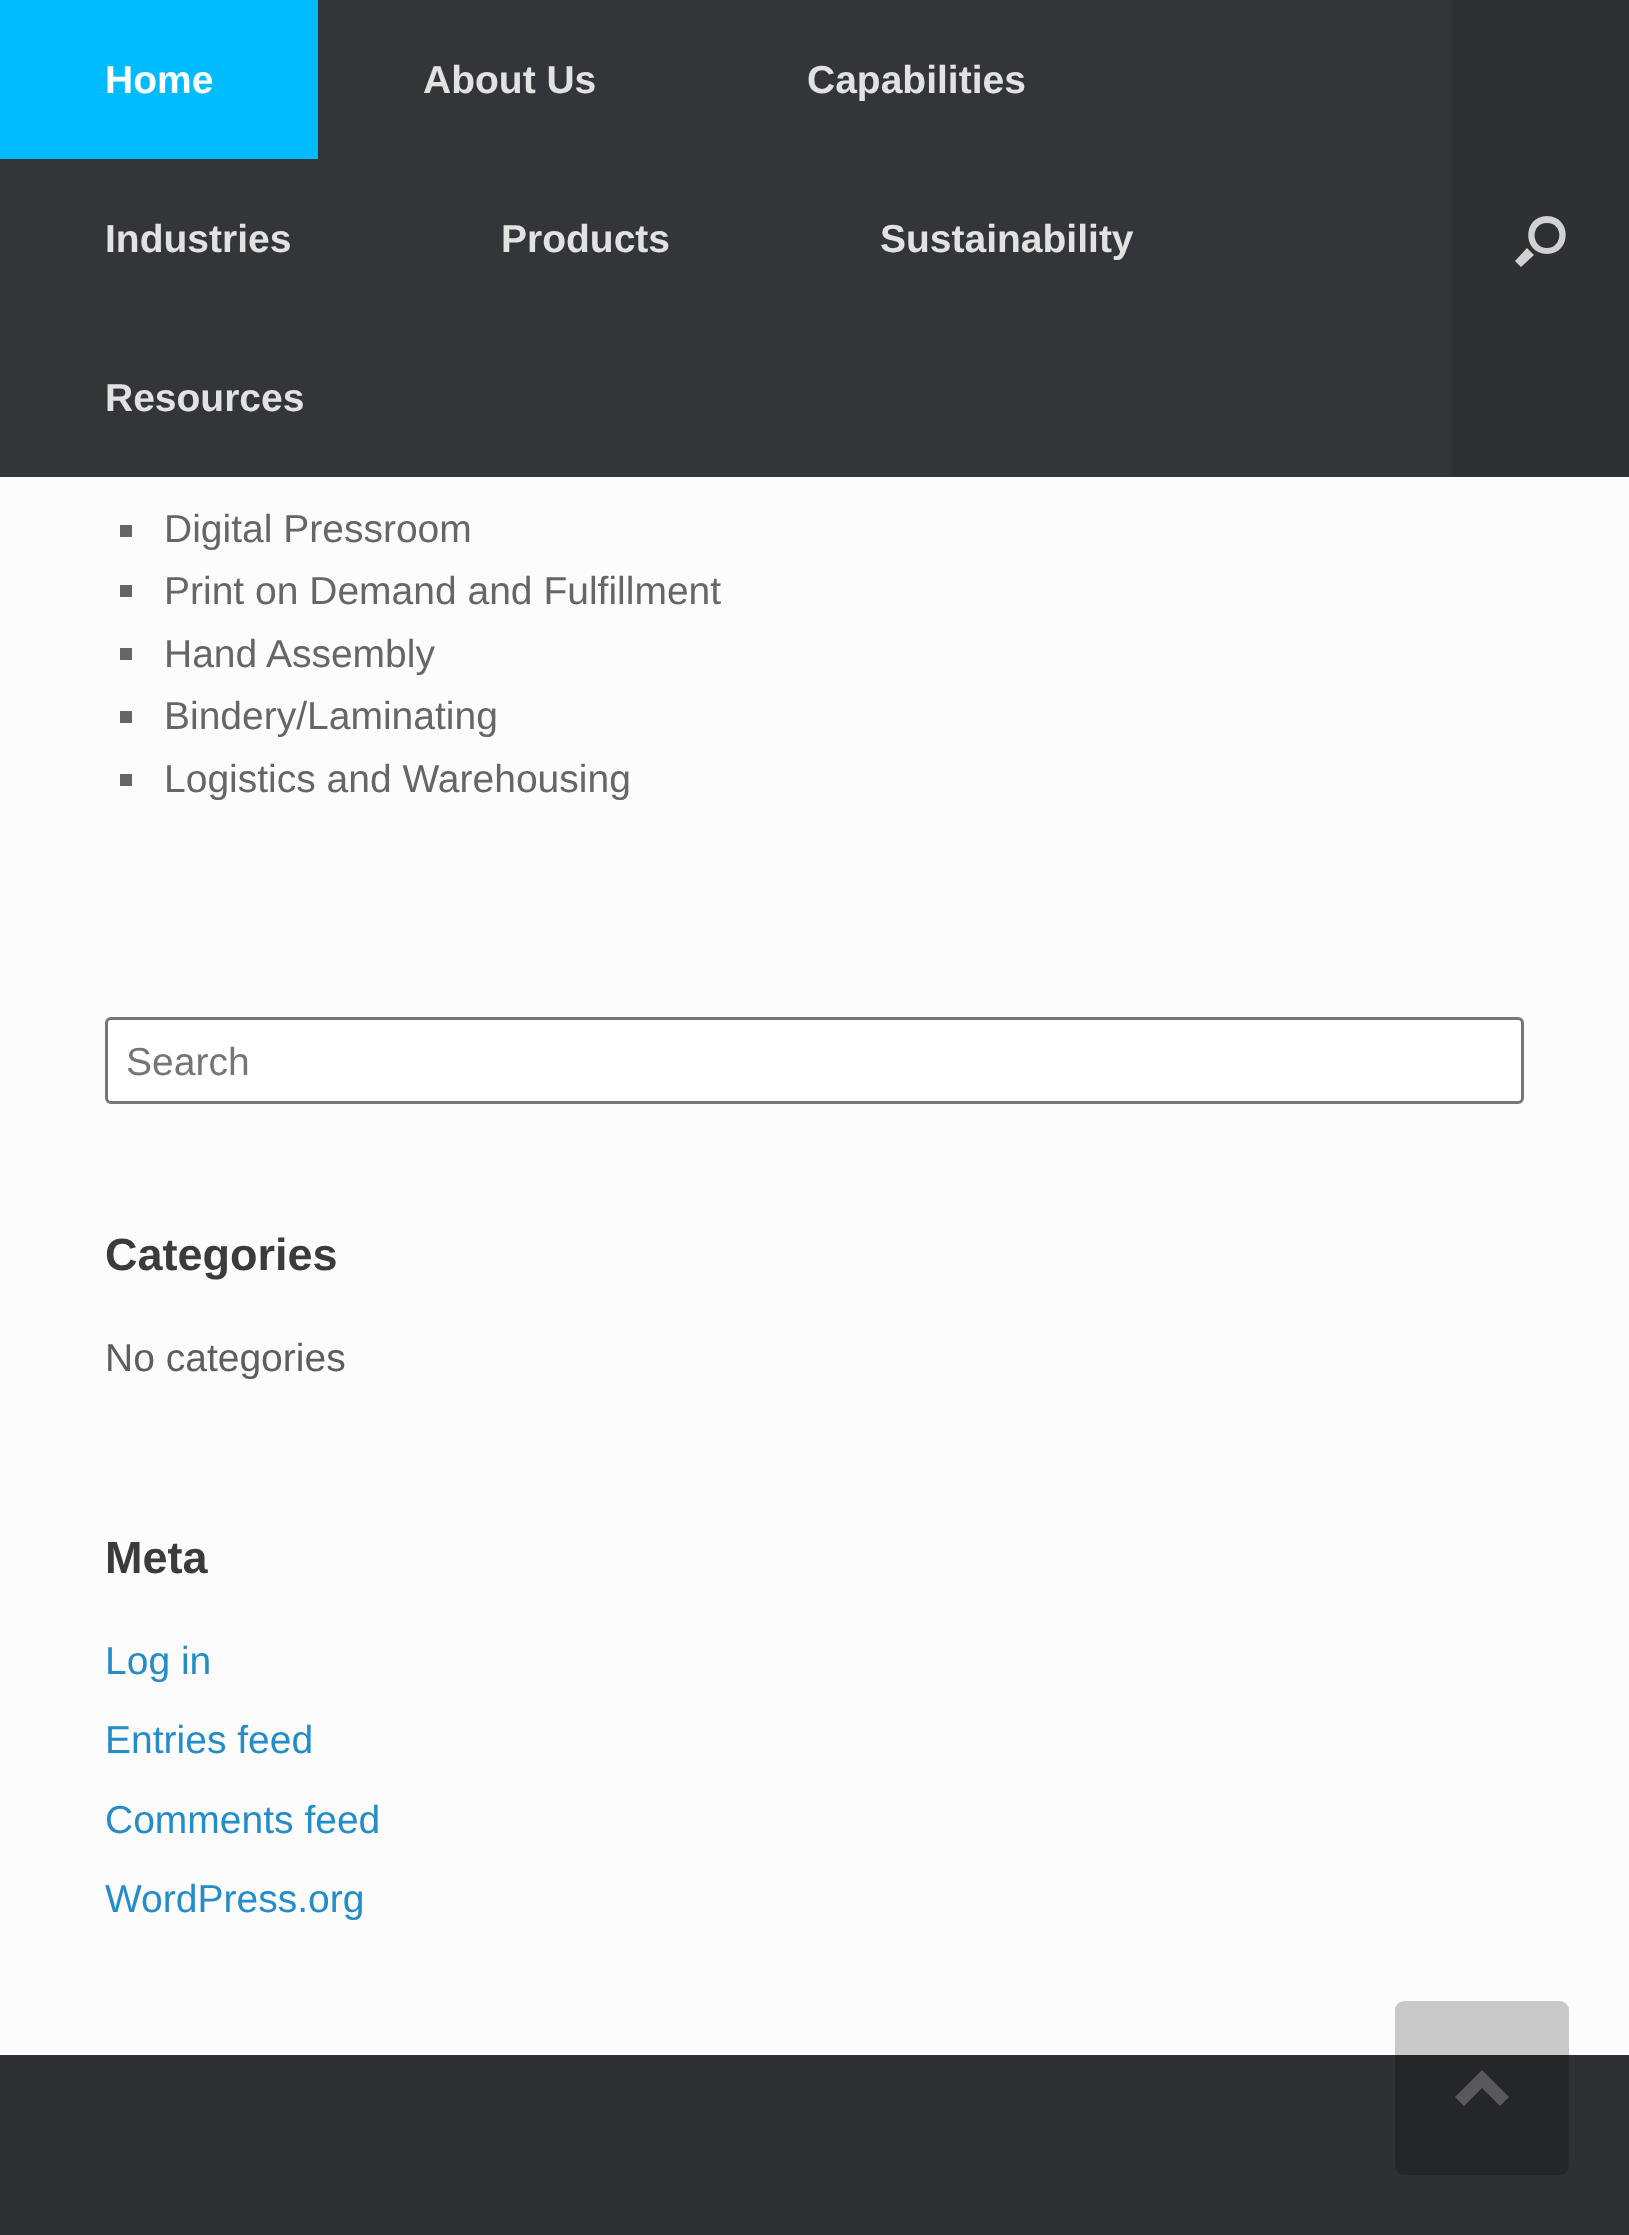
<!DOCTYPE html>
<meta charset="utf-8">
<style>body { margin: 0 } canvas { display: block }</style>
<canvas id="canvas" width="1629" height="2235"></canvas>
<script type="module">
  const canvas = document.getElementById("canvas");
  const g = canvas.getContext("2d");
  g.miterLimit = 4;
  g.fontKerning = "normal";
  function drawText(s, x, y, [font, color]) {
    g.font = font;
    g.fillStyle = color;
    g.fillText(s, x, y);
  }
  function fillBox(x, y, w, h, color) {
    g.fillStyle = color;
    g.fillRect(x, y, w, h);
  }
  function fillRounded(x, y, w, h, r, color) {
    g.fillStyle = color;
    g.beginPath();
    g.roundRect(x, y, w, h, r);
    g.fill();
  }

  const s1 = ["bold 39px Liberation Sans", "#FFFFFF"];
  const s2 = ["bold 39px Liberation Sans", "#E2E2E2"];
  const s3 = ["39px Liberation Sans", "#666666"];
  const s4 = ["39px Liberation Sans", "#757575"];
  const s5 = ["bold 45px Liberation Sans", "#3B3B3B"];
  const s6 = ["39px Liberation Sans", "#5E5E5E"];
  const s7 = ["39px Liberation Sans", "#248CC8"];

  fillBox(0, 0, 1629, 2235, "#2F3033");
  fillBox(0, 0, 1452, 477, "#343538");
  fillBox(0, 0, 318, 159, "#00BCFF");
  drawText("Home", 105, 93, s1);
  drawText("About Us", 423, 93, s2);
  drawText("Capabilities", 807, 93, s2);
  drawText("Industries", 105, 252, s2);
  drawText("Products", 501, 252, s2);
  drawText("Sustainability", 880, 252, s2);
  drawText("Resources", 105, 411, s2);
  g.fillStyle = "#D1D1D1";
  g.beginPath();
  g.moveTo(1547, 223);
  g.bezierCurveTo(1564, 223, 1563, 248, 1547, 248);
  g.bezierCurveTo(1531, 248, 1530, 223, 1547, 223);
  g.closePath();
  g.moveTo(1547, 216);
  g.bezierCurveTo(1522, 216, 1522, 254, 1547, 254);
  g.bezierCurveTo(1572, 254, 1572, 216, 1547, 216);
  g.closePath();
  g.moveTo(1527, 248);
  g.lineTo(1534, 255);
  g.lineTo(1521, 267);
  g.lineTo(1515, 261);
  g.closePath();
  g.fill();
  fillBox(0, 477, 1629, 1578, "#FCFCFC");
  fillBox(120, 525, 12, 12, "#666666");
  drawText("Digital Pressroom", 164, 542, s3);
  fillBox(120, 585, 12, 12, "#666666");
  drawText("Print on Demand and Fulfillment", 164, 604, s3);
  fillBox(120, 648, 12, 12, "#666666");
  drawText("Hand Assembly", 164, 667, s3);
  fillBox(120, 711, 12, 12, "#666666");
  drawText("Bindery/Laminating", 164, 729, s3);
  fillBox(120, 774, 12, 12, "#666666");
  drawText("Logistics and Warehousing", 164, 792, s3);
  g.fillStyle = "#FFFFFF";
  g.beginPath();
  g.roundRect(106.5, 1018.5, 1416, 84, 4.5);
  g.fill();
  g.strokeStyle = "#767676";
  g.lineWidth = 3;
  g.stroke();
  drawText("Search", 126, 1075, s4);
  drawText("Categories", 105, 1270, s5);
  drawText("No categories", 105, 1371, s6);
  drawText("Meta", 105, 1573, s5);
  drawText("Log in", 105, 1674, s7);
  drawText("Entries feed", 105, 1753, s7);
  drawText("Comments feed", 105, 1833, s7);
  drawText("WordPress.org", 105, 1912, s7);
  fillRounded(1395, 2001, 174, 174, 9, "rgba(0, 0, 0, 0.2)");
  g.fillStyle = "#59595C";
  g.beginPath();
  g.moveTo(1509, 2097);
  g.lineTo(1482, 2070);
  g.lineTo(1455, 2097);
  g.lineTo(1464, 2106);
  g.lineTo(1482, 2088);
  g.lineTo(1500, 2106);
  g.closePath();
  g.fill();
</script>
